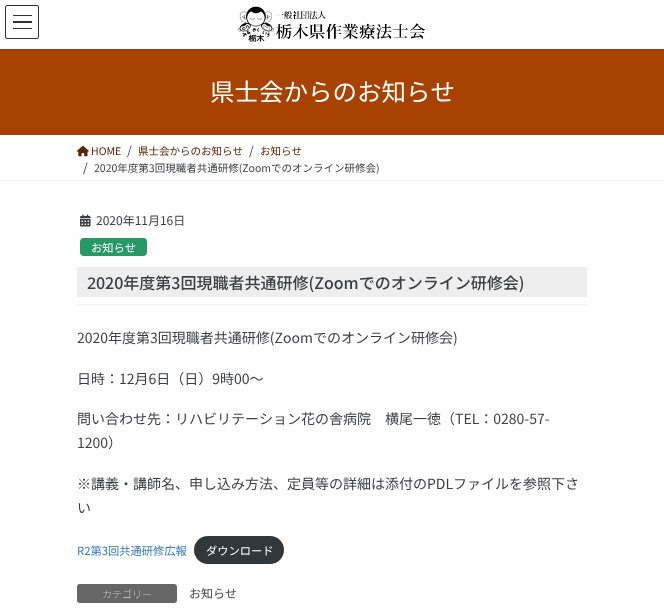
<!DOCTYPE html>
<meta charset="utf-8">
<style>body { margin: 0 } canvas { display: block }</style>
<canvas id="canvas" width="664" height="612"></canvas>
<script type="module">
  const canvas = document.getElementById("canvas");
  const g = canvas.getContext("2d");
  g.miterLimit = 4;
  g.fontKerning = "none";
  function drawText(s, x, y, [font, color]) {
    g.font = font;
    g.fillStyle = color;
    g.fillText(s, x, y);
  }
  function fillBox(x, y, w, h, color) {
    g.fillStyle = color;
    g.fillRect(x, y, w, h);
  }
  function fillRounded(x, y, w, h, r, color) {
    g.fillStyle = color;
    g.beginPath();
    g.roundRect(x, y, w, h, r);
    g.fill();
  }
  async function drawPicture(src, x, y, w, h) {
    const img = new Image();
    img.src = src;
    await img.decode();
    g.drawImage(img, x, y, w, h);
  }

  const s1 = ["24.5px Noto Sans JP", "#FFFFFF"];
  const s2 = ["10.5px Noto Sans JP", "#5C2400"];
  const s3 = ["12px Noto Sans JP", "#3C3F41"];
  const s4 = ["10.5px Noto Sans JP", "#3C3F41"];
  const s5 = ["11.25px Noto Sans JP", "#FFFFFF"];
  const s6 = ["500 16px Noto Sans", "#3C3F41"];
  const s7 = ["500 16px Noto Sans JP", "#3C3F41"];
  const s8 = ["14px Noto Sans JP", "#3C3F41"];
  const s9 = ["11.25px Noto Sans JP", "#337AB7"];
  const s10 = ["100 10px Noto Sans JP", "#FFFFFF"];
  const s11 = ["12px Noto Sans JP", "#464646"];

  fillBox(0, 0, 664, 612, "#FFFFFF");
  fillBox(0, 49, 664, 86, "#A74200");
  g.save();
  g.beginPath();
  g.rect(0, 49, 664, 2);
  g.clip();
  g.fillStyle = "rgba(0, 0, 0, 0.1)";
  g.filter = "blur(1.5px)";
  g.beginPath();
  g.rect(0, 1, 664, 49);
  g.fill();
  g.filter = "none";
  g.restore();
  await drawPicture("pic1.png", 238, 6, 187, 36);
  fillBox(13, 15, 19, 1, "#333333");
  fillBox(13, 21, 19, 2, "#333333");
  fillBox(13, 28, 19, 1, "#333333");
  g.beginPath();
  g.roundRect(5.5, 5.5, 33, 33, 1.5);
  g.strokeStyle = "#333333";
  g.stroke();
  drawText("県士会からのお知らせ", 210, 101, s1);
  fillBox(0, 180, 664, 1, "#F2F2F2");
  await drawPicture("pic2.png", 77, 145, 12, 12);
  drawText("HOME", 91, 155, s2);
  drawText("/", 127, 155, s3);
  drawText("県士会からのお知らせ", 138, 155, s2);
  drawText("/", 249, 155, s3);
  drawText("お知らせ", 260, 155, s2);
  drawText("/", 83, 172, s3);
  drawText("2020年度第3回現職者共通研修(Zoomでのオンライン研修会)", 94, 172, s4);
  fillBox(77, 304, 510, 1, "#F2F2F2");
  await drawPicture("pic3.png", 80, 214, 11, 13);
  drawText("2020年11月16日", 96, 225, s3);
  fillRounded(80, 238, 67, 18, 4, "#279967");
  drawText("お知らせ", 91, 252, s5);
  fillBox(77, 267, 510, 30, "#EEEEEE");
  drawText("2", 87, 289, s6);
  drawText("020年度第3回現職者共通研修(Zoomでのオンライン研修会)", 96, 289, s7);
  drawText("2020年度第3回現職者共通研修(Zoomでのオンライン研修会)", 77, 343, s8);
  drawText("日時：12月6日（日）9時00〜", 77, 384, s8);
  drawText("問い合わせ先：リハビリテーション花の舎病院　横尾一徳（TEL：0280-57-", 77, 424, s8);
  drawText("1200）", 77, 448, s8);
  drawText("※講義・講師名、申し込み方法、定員等の詳細は添付のPDLファイルを参照下さ", 77, 489, s8);
  drawText("い", 77, 513, s8);
  drawText("R2第3回共通研修広報", 77, 555, s9);
  fillRounded(194, 536, 90, 28, 14, "#32373C");
  drawText("ダウンロード", 206, 555, s5);
  fillRounded(77, 584, 100, 19, 3, "#666666");
  drawText("カテゴリー", 102, 598, s10);
  drawText("お知らせ", 189, 598, s11);
</script>
